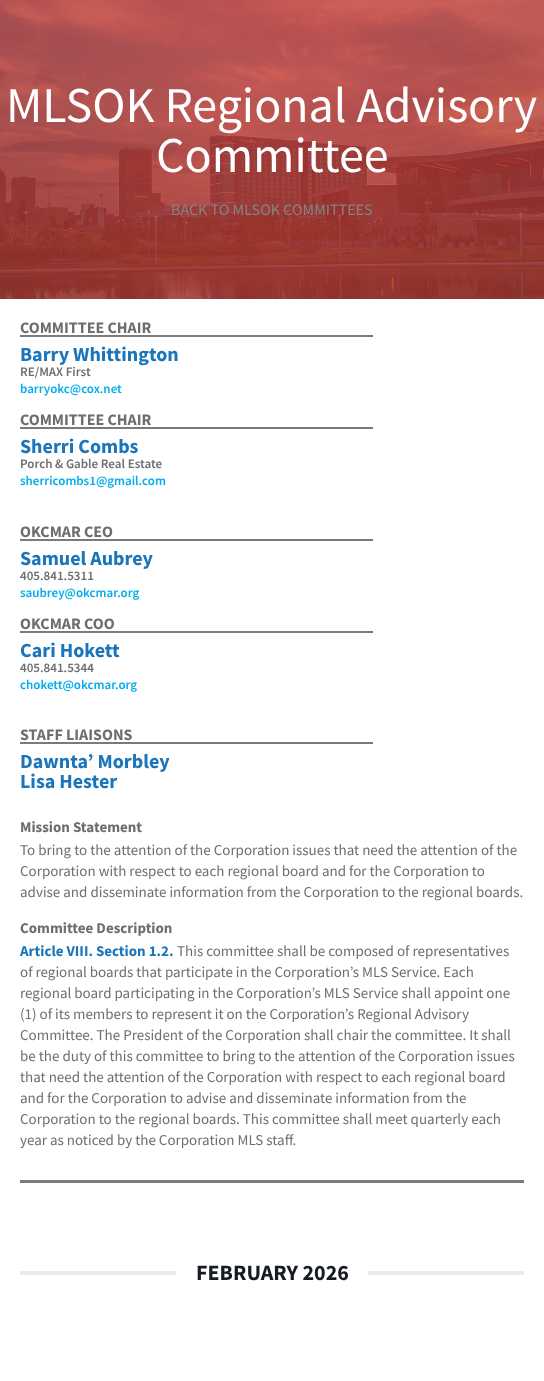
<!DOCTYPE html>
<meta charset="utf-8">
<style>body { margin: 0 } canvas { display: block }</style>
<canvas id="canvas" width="544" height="1381"></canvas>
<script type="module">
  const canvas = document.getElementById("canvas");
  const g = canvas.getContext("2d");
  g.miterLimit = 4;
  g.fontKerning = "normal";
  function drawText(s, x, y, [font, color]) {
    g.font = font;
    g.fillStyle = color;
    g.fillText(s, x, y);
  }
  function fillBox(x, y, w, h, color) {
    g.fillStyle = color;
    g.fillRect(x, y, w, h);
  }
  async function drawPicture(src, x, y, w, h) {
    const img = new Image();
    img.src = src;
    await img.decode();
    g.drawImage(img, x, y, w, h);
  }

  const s1 = ["50px Source Sans Pro", "#FFFFFF"];
  const s2 = ["16px Source Sans Pro", "#848484"];
  const s3 = ["bold 16px Source Sans Pro", "#6D6E70"];
  const s4 = ["bold 20px Source Sans Pro", "#1B75BB"];
  const s5 = ["600 13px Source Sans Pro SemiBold", "#6D6E70"];
  const s6 = ["600 13px Source Sans Pro SemiBold", "#00ADEE"];
  const s7 = ["bold 15px Source Sans Pro", "#6D6E70"];
  const s8 = ["15px Source Sans Pro", "#6D6E70"];
  const s9 = ["bold 15px Source Sans Pro", "#1B75BB"];
  const s10 = ["bold 22px Source Sans Pro", "#171C24"];

  fillBox(0, 0, 544, 1381, "#FFFFFF");
  await drawPicture("pic1.png", 0, 0, 544, 299);
  drawText("MLSOK Regional Advisory", 6, 122, s1);
  drawText("Committee", 156, 172, s1);
  drawText("BACK TO MLSOK COMMITTEES", 171, 215, s2);
  drawText("COMMITTEE CHAIR", 20, 333, s3);
  fillBox(20, 335, 353, 2, "#7A7A7A");
  drawText("Barry Whittington", 20, 361, s4);
  drawText("RE/MAX First", 20, 376, s5);
  drawText("barryokc@cox.net", 20, 393, s6);
  drawText("COMMITTEE CHAIR", 20, 425, s3);
  fillBox(20, 427, 353, 2, "#7A7A7A");
  drawText("Sherri Combs", 20, 453, s4);
  drawText("Porch & Gable Real Estate", 20, 468, s5);
  drawText("sherricombs1@gmail.com", 20, 485, s6);
  drawText("OKCMAR CEO", 20, 537, s3);
  fillBox(20, 539, 353, 2, "#7A7A7A");
  drawText("Samuel Aubrey", 20, 565, s4);
  drawText("405.841.5311", 20, 580, s5);
  drawText("saubrey@okcmar.org", 20, 597, s6);
  drawText("OKCMAR COO", 20, 629, s3);
  fillBox(20, 631, 353, 2, "#7A7A7A");
  drawText("Cari Hokett", 20, 657, s4);
  drawText("405.841.5344", 20, 672, s5);
  drawText("chokett@okcmar.org", 20, 689, s6);
  drawText("STAFF LIAISONS", 20, 740, s3);
  fillBox(20, 742, 353, 2, "#7A7A7A");
  drawText("Dawnta’ Morbley", 20, 768, s4);
  drawText("Lisa Hester", 20, 788, s4);
  drawText("Mission Statement", 20, 832, s7);
  drawText("To bring to the attention of the Corporation issues that need the attention of the", 20, 855, s8);
  drawText("Corporation with respect to each regional board and for the Corporation to", 20, 876, s8);
  drawText("advise and disseminate information from the Corporation to the regional boards.", 20, 897, s8);
  drawText("Committee Description", 20, 933, s7);
  drawText("Article VIII. Section 1.2.", 20, 956, s9);
  drawText("This committee shall be composed of representatives", 177, 956, s8);
  drawText("of regional boards that participate in the Corporation’s MLS Service. Each", 20, 977, s8);
  drawText("regional board participating in the Corporation’s MLS Service shall appoint one", 20, 998, s8);
  drawText("(1) of its members to represent it on the Corporation’s Regional Advisory", 20, 1019, s8);
  drawText("Committee. The President of the Corporation shall chair the committee. It shall", 20, 1040, s8);
  drawText("be the duty of this committee to bring to the attention of the Corporation issues", 20, 1061, s8);
  drawText("that need the attention of the Corporation with respect to each regional board", 20, 1082, s8);
  drawText("and for the Corporation to advise and disseminate information from the", 20, 1103, s8);
  drawText("Corporation to the regional boards. This committee shall meet quarterly each", 20, 1124, s8);
  drawText("year as noticed by the Corporation MLS staff.", 20, 1145, s8);
  fillBox(20, 1180, 504, 3, "#7A7A7A");
  fillBox(20, 1271, 156, 4, "#EBEBEB");
  drawText("FEBRUARY 2026", 196, 1280, s10);
  fillBox(368, 1271, 156, 4, "#EBEBEB");
</script>
